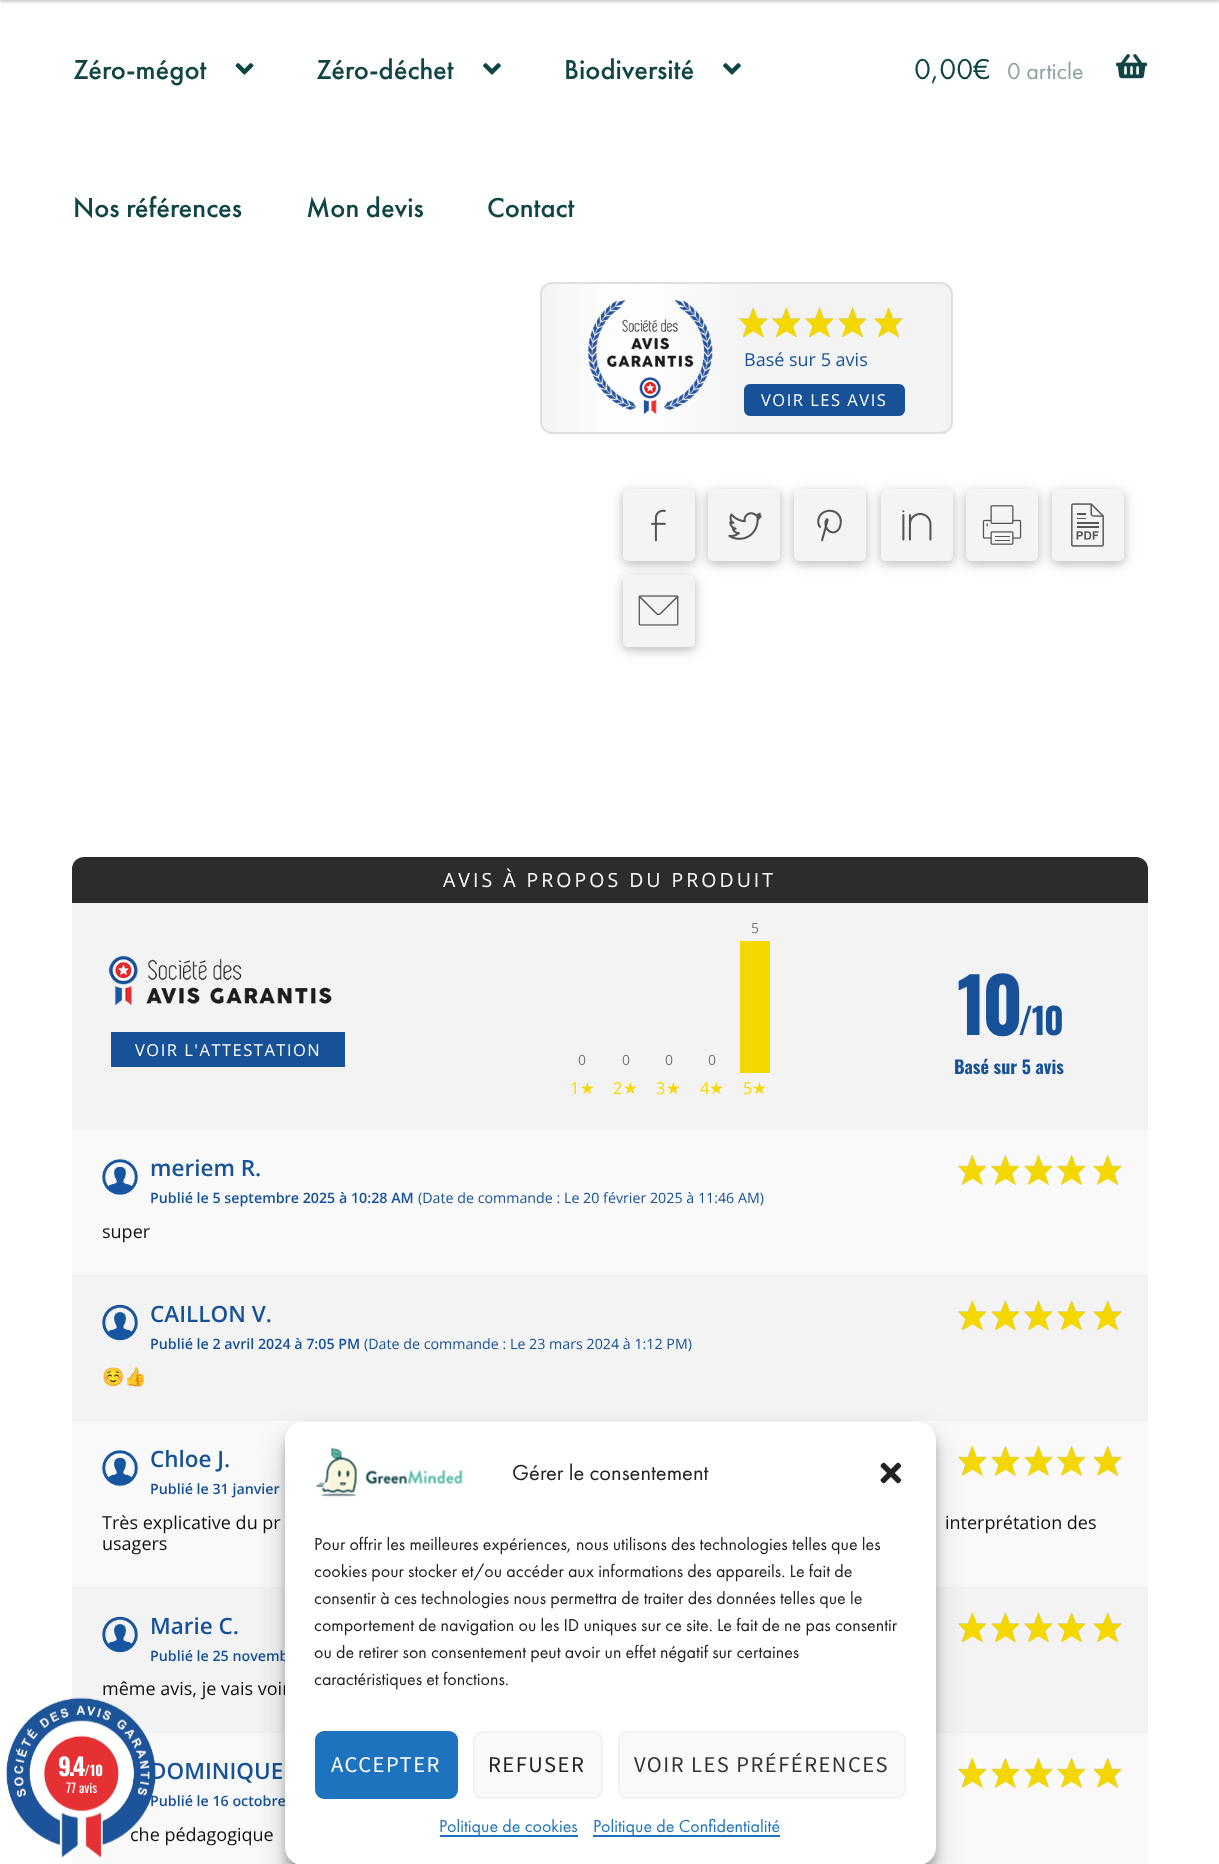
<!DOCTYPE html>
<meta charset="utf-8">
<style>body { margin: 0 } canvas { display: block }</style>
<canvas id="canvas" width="1219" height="1864"></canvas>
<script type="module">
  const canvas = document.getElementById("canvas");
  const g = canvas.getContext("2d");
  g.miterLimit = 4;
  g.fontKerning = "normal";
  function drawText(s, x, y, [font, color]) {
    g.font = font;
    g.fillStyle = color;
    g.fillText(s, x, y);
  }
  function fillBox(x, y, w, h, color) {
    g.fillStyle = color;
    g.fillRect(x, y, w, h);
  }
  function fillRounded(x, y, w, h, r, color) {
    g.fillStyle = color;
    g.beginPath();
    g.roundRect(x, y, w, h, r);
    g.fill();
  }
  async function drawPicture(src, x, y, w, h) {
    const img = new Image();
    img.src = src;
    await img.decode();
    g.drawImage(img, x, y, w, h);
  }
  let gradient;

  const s1 = ["500 28.5px Futura PT", "#104545"];
  const s2 = ["30px Futura PT", "#104545"];
  const s3 = ["24px Futura PT", "#88A2A2"];
  const s4 = ["18px Open Sans", "#175298"];
  const s5 = ["16.5px Open Sans", "#FFFFFF"];
  const s6 = ["19.5px Open Sans", "#FFFFFF"];
  const s7 = ["14px Open Sans", "#777777"];
  const s8 = ["16.5px Open Sans", "#F5D700"];
  const s9 = ["16.5px DejaVu Sans", "#F5D700"];
  const s10 = ["bold 75px Oswald", "#175298"];
  const s11 = ["bold 36px Oswald", "#175298"];
  const s12 = ["bold 18px Oswald", "#175298"];
  const s13 = ["600 22.5px Open Sans", "#175298"];
  const s14 = ["600 14.25px Open Sans", "#175298"];
  const s15 = ["14.25px Open Sans", "#175298"];
  const s16 = ["18px Open Sans", "#111111"];
  const s17 = ["18px Noto Color Emoji", "#111111"];
  const s18 = ["bold 24px Oswald", "#FFFFFF"];
  const s19 = ["bold 14px Oswald", "#FFFFFF"];
  const s20 = ["13px Oswald", "#FFFFFF"];
  const s21 = ["22.5px Futura PT", "#222222"];
  const s22 = ["18px Futura PT", "#222222"];
  const s23 = ["22.5px Source Sans Pro", "#FFFFFF"];
  const s24 = ["22.5px Source Sans Pro", "#222222"];
  const s25 = ["22.5px Source Sans Pro", "#333333"];
  const s26 = ["18px Futura PT", "#1E73BE"];

  fillBox(0, 0, 1219, 1864, "#FFFFFF");
  g.fillStyle = "rgba(0, 0, 0, 0.2)";
  g.filter = "blur(1.5px)";
  g.beginPath();
  g.rect(0, -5, 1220, 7);
  g.fill();
  g.filter = "none";
  drawText("Zéro-mégot", 73, 79, s1);
  await drawPicture("pic1.png", 235, 63, 19, 12);
  drawText("Zéro-déchet", 316, 79, s1);
  await drawPicture("pic2.png", 483, 63, 18, 12);
  drawText("Biodiversité", 564, 79, s1);
  await drawPicture("pic2.png", 723, 63, 18, 12);
  drawText("Nos références", 73, 217, s1);
  drawText("Mon devis", 306, 217, s1);
  drawText("Contact", 487, 217, s1);
  drawText("0,00€", 914, 79, s2);
  drawText("0 article", 1007, 79, s3);
  await drawPicture("pic3.png", 1116, 54, 32, 25);
  gradient = g.createLinearGradient(540, 358, 953, 358);
  gradient.addColorStop(0, "#F3F3F3");
  gradient.addColorStop(0.16, "#FDFDFD");
  gradient.addColorStop(0.26, "#FEFEFE");
  gradient.addColorStop(0.51, "#F3F3F3");
  g.fillStyle = gradient;
  g.beginPath();
  g.roundRect(541, 283, 411, 150, 11);
  g.fill();
  g.strokeStyle = "#DFDFDF";
  g.lineWidth = 2;
  g.stroke();
  await drawPicture("pic4.png", 588, 299, 125, 116);
  await drawPicture("pic5.png", 739, 307, 164, 30);
  await drawPicture("pic6.png", 739, 307, 164, 31);
  drawText("Basé sur 5 avis", 744, 366, s4);
  g.beginPath();
  g.roundRect(745, 385, 159, 30, 5);
  g.fill();
  g.strokeStyle = "#175298";
  g.stroke();
  g.letterSpacing = "1.5px";
  drawText("VOIR LES AVIS", 761, 406, s5);
  g.fillStyle = "rgba(0, 0, 0, 0.12)";
  g.filter = "blur(7.5px)";
  g.beginPath();
  g.roundRect(623, 492, 72, 72, 5);
  g.fill();
  g.filter = "none";
  g.fillStyle = "rgba(0, 0, 0, 0.16)";
  g.filter = "blur(4px)";
  g.beginPath();
  g.roundRect(623, 492, 72, 72, 5);
  g.fill();
  g.filter = "none";
  fillRounded(623, 489, 72, 72, 5, "#F4F4F4");
  await drawPicture("pic7.png", 651, 509, 15, 33);
  g.fillStyle = "rgba(0, 0, 0, 0.12)";
  g.filter = "blur(7.5px)";
  g.beginPath();
  g.roundRect(708, 492, 72, 72, 5);
  g.fill();
  g.filter = "none";
  g.fillStyle = "rgba(0, 0, 0, 0.16)";
  g.filter = "blur(4px)";
  g.beginPath();
  g.roundRect(708, 492, 72, 72, 5);
  g.fill();
  g.filter = "none";
  fillRounded(708, 489, 72, 72, 5, "#F4F4F4");
  await drawPicture("pic8.png", 728, 512, 34, 28);
  g.fillStyle = "rgba(0, 0, 0, 0.12)";
  g.filter = "blur(7.5px)";
  g.beginPath();
  g.roundRect(794, 492, 72, 72, 5);
  g.fill();
  g.filter = "none";
  g.fillStyle = "rgba(0, 0, 0, 0.16)";
  g.filter = "blur(4px)";
  g.beginPath();
  g.roundRect(794, 492, 72, 72, 5);
  g.fill();
  g.filter = "none";
  fillRounded(794, 489, 72, 72, 5, "#F4F4F4");
  await drawPicture("pic9.png", 817, 509, 25, 33);
  g.fillStyle = "rgba(0, 0, 0, 0.12)";
  g.filter = "blur(7.5px)";
  g.beginPath();
  g.roundRect(881, 492, 72, 72, 5);
  g.fill();
  g.filter = "none";
  g.fillStyle = "rgba(0, 0, 0, 0.16)";
  g.filter = "blur(4px)";
  g.beginPath();
  g.roundRect(881, 492, 72, 72, 5);
  g.fill();
  g.filter = "none";
  fillRounded(881, 489, 72, 72, 5, "#F4F4F4");
  await drawPicture("pic10.png", 902, 510, 30, 31);
  g.fillStyle = "rgba(0, 0, 0, 0.12)";
  g.filter = "blur(7.5px)";
  g.beginPath();
  g.roundRect(966, 492, 72, 72, 5);
  g.fill();
  g.filter = "none";
  g.fillStyle = "rgba(0, 0, 0, 0.16)";
  g.filter = "blur(4px)";
  g.beginPath();
  g.roundRect(966, 492, 72, 72, 5);
  g.fill();
  g.filter = "none";
  fillRounded(966, 489, 72, 72, 5, "#F4F4F4");
  await drawPicture("pic11.png", 982, 505, 40, 40);
  g.fillStyle = "rgba(0, 0, 0, 0.12)";
  g.filter = "blur(7.5px)";
  g.beginPath();
  g.roundRect(1052, 492, 72, 72, 5);
  g.fill();
  g.filter = "none";
  g.fillStyle = "rgba(0, 0, 0, 0.16)";
  g.filter = "blur(4px)";
  g.beginPath();
  g.roundRect(1052, 492, 72, 72, 5);
  g.fill();
  g.filter = "none";
  fillRounded(1052, 489, 72, 72, 5, "#F4F4F4");
  await drawPicture("pic12.png", 1071, 503, 33, 44);
  g.fillStyle = "rgba(0, 0, 0, 0.12)";
  g.filter = "blur(7.5px)";
  g.beginPath();
  g.roundRect(623, 578, 72, 72, 5);
  g.fill();
  g.filter = "none";
  g.fillStyle = "rgba(0, 0, 0, 0.16)";
  g.filter = "blur(4px)";
  g.beginPath();
  g.roundRect(623, 578, 72, 72, 5);
  g.fill();
  g.filter = "none";
  fillRounded(623, 575, 72, 72, 5, "#F4F4F4");
  await drawPicture("pic13.png", 638, 595, 41, 31);
  g.beginPath();
  g.roundRect(73, 858, 1074, 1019, 11);
  g.strokeStyle = "#DFDFDF";
  g.stroke();
  g.fillStyle = "#2C2C2C";
  g.beginPath();
  g.roundRect(72, 857, 1076, 46, [12, 12, 0, 0]);
  g.fill();
  g.letterSpacing = "3px";
  drawText("AVIS À PROPOS DU PRODUIT", 443, 887, s6);
  fillBox(72, 903, 1076, 227, "#F3F3F3");
  await drawPicture("pic14.png", 108, 955, 224, 51);
  fillBox(111, 1032, 234, 35, "#175298");
  g.letterSpacing = "1.5px";
  drawText("VOIR L'ATTESTATION", 135, 1056, s5);
  g.letterSpacing = "0px";
  drawText("0", 578, 1065, s7);
  drawText("1", 570, 1094, s8);
  drawText("★", 580, 1094, s9);
  drawText("0", 622, 1065, s7);
  drawText("2", 613, 1094, s8);
  drawText("★", 623, 1094, s9);
  drawText("0", 665, 1065, s7);
  drawText("3", 656, 1094, s8);
  drawText("★", 666, 1094, s9);
  drawText("0", 708, 1065, s7);
  drawText("4", 700, 1094, s8);
  drawText("★", 709, 1094, s9);
  fillBox(740, 941, 30, 132, "#F5D700");
  drawText("5", 751, 933, s7);
  drawText("5", 743, 1094, s8);
  drawText("★", 752, 1094, s9);
  g.letterSpacing = "-4px";
  drawText("10", 957, 1035, s10);
  g.letterSpacing = "-1.5px";
  drawText("/10", 1018, 1035, s11);
  g.letterSpacing = "0px";
  drawText("Basé sur 5 avis", 954, 1074, s12);
  fillBox(72, 1130, 1076, 145, "#F9F9F9");
  await drawPicture("pic15.png", 102, 1159, 36, 36);
  drawText("meriem R.", 150, 1176, s13);
  drawText("Publié le 5 septembre 2025 à 10:28 AM", 150, 1203, s14);
  drawText("(Date de commande : Le 20 février 2025 à 11:46 AM)", 418, 1203, s15);
  await drawPicture("pic16.png", 958, 1154, 164, 31);
  await drawPicture("pic17.png", 958, 1155, 164, 30);
  drawText("super", 102, 1238, s16);
  fillBox(72, 1275, 1076, 146, "#F3F3F3");
  await drawPicture("pic18.png", 102, 1304, 36, 37);
  drawText("CAILLON V.", 150, 1322, s13);
  drawText("Publié le 2 avril 2024 à 7:05 PM", 150, 1349, s14);
  drawText("(Date de commande : Le 23 mars 2024 à 1:12 PM)", 364, 1349, s15);
  await drawPicture("pic19.png", 958, 1300, 164, 30);
  await drawPicture("pic20.png", 958, 1300, 164, 31);
  drawText("☺️👍", 102, 1383, s17);
  fillBox(72, 1421, 1076, 166, "#F9F9F9");
  await drawPicture("pic21.png", 102, 1450, 36, 36);
  drawText("Chloe J.", 150, 1467, s13);
  drawText("Publié le 31 janvier", 150, 1494, s14);
  await drawPicture("pic16.png", 958, 1445, 164, 31);
  await drawPicture("pic17.png", 958, 1446, 164, 30);
  drawText("Très explicative du pr", 102, 1529, s16);
  drawText("interprétation des", 945, 1529, s16);
  drawText("usagers", 102, 1550, s16);
  fillBox(72, 1587, 1076, 146, "#F3F3F3");
  await drawPicture("pic18.png", 102, 1616, 36, 37);
  drawText("Marie C.", 150, 1634, s13);
  drawText("Publié le 25 novemb", 150, 1661, s14);
  await drawPicture("pic19.png", 958, 1612, 164, 30);
  await drawPicture("pic20.png", 958, 1612, 164, 31);
  drawText("même avis, je vais voir", 102, 1695, s16);
  fillBox(72, 1733, 1076, 131, "#F9F9F9");
  drawText("DOMINIQUE", 150, 1779, s13);
  drawText("Publié le 16 octobre", 150, 1806, s14);
  await drawPicture("pic16.png", 958, 1757, 164, 31);
  await drawPicture("pic17.png", 958, 1758, 164, 30);
  drawText("che pédagogique", 130, 1841, s16);
  await drawPicture("pic22.png", 6, 1697, 150, 161);
  g.letterSpacing = "-2px";
  drawText("9.4", 58, 1776, s18);
  g.letterSpacing = "0px";
  drawText("/10", 84, 1776, s19);
  drawText("77 avis", 66, 1793, s20);
  g.fillStyle = "rgba(0, 0, 0, 0.23)";
  g.filter = "blur(4.5px)";
  g.beginPath();
  g.roundRect(285, 1431, 651, 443, 18);
  g.fill();
  g.filter = "none";
  g.fillStyle = "rgba(0, 0, 0, 0.19)";
  g.filter = "blur(15px)";
  g.beginPath();
  g.roundRect(285, 1437, 651, 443, 18);
  g.fill();
  g.filter = "none";
  fillRounded(285, 1422, 651, 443, 18, "#FFFFFF");
  await drawPicture("pic23.png", 316, 1447, 147, 50);
  drawText("Gérer le consentement", 512, 1480, s21);
  await drawPicture("pic24.png", 880, 1462, 22, 22);
  drawText("Pour offrir les meilleures expériences, nous utilisons des technologies telles que les", 314, 1550, s22);
  drawText("cookies pour stocker et/ou accéder aux informations des appareils. Le fait de", 314, 1577, s22);
  drawText("consentir à ces technologies nous permettra de traiter des données telles que le", 314, 1604, s22);
  drawText("comportement de navigation ou les ID uniques sur ce site. Le fait de ne pas consentir", 314, 1631, s22);
  drawText("ou de retirer son consentement peut avoir un effet négatif sur certaines", 314, 1658, s22);
  drawText("caractéristiques et fonctions.", 314, 1685, s22);
  g.fillStyle = "#1E73BE";
  g.beginPath();
  g.roundRect(316, 1732, 141, 66, 8);
  g.fill();
  g.strokeStyle = "#1E73BE";
  g.stroke();
  g.letterSpacing = "1.5px";
  drawText("ACCEPTER", 331, 1772, s23);
  g.fillStyle = "#F9F9F9";
  g.beginPath();
  g.roundRect(474, 1732, 128, 66, 8);
  g.fill();
  g.strokeStyle = "#F2F2F2";
  g.stroke();
  drawText("REFUSER", 488, 1772, s24);
  g.fillStyle = "#F9F9F9";
  g.beginPath();
  g.roundRect(619, 1732, 286, 66, 8);
  g.fill();
  g.stroke();
  drawText("VOIR LES PRÉFÉRENCES", 634, 1772, s25);
  fillBox(440, 1835, 138, 2, "#1E73BE");
  g.letterSpacing = "0px";
  drawText("Politique de cookies", 439, 1832, s26);
  fillBox(593, 1835, 187, 2, "#1E73BE");
  drawText("Politique de Confidentialité", 593, 1832, s26);
</script>
